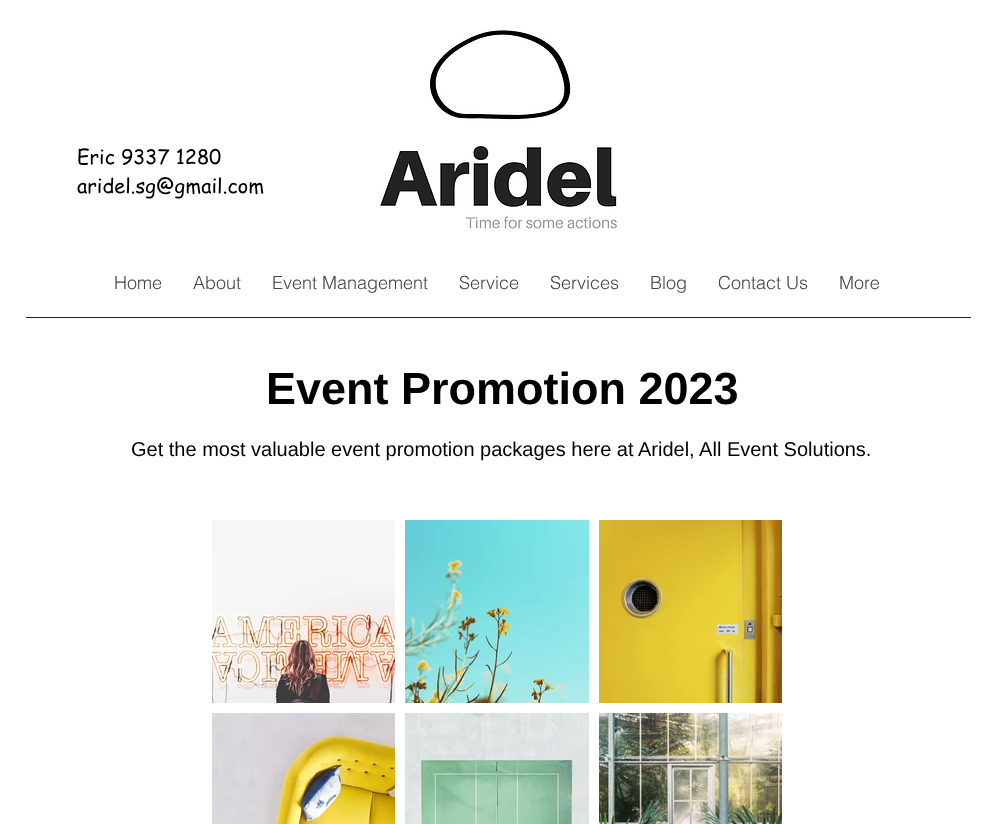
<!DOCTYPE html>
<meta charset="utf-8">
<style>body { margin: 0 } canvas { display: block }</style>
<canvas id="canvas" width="994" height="824"></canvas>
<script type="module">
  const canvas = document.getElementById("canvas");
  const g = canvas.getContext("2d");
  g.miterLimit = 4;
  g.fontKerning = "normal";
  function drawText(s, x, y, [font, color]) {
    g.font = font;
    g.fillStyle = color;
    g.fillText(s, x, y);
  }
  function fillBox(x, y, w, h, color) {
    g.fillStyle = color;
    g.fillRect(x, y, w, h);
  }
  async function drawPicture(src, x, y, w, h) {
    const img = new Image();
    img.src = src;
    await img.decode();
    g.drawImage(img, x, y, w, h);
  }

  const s1 = ["20px 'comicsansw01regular'", "#000000"];
  const s2 = ["300 18px helvetica", "#444444"];
  const s3 = ["bold 45px Liberation Sans", "#000000"];
  const s4 = ["20px Liberation Sans", "#000000"];

  fillBox(0, 0, 994, 824, "#FFFFFF");
  drawText("Eric 9337 1280", 77, 164, s1);
  drawText("aridel.sg@gmail.com", 77, 193, s1);
  await drawPicture("pic1.png", 380, 28, 237, 201);
  drawText("Home", 114, 289, s2);
  drawText("About", 193, 289, s2);
  drawText("Event Management", 272, 289, s2);
  drawText("Service", 459, 289, s2);
  drawText("Services", 550, 289, s2);
  drawText("Blog", 650, 289, s2);
  drawText("Contact Us", 718, 289, s2);
  drawText("More", 839, 289, s2);
  fillBox(26, 317, 945, 1, "#262626");
  drawText("Event Promotion 2023", 266, 404, s3);
  drawText("Get the most valuable event promotion packages here at Aridel, All Event Solutions.", 131, 456, s4);
  await drawPicture("pic2.png", 212, 520, 183, 183);
  await drawPicture("pic3.png", 405, 520, 184, 183);
  await drawPicture("pic4.png", 599, 520, 183, 183);
  await drawPicture("pic5.png", 212, 713, 183, 111);
  await drawPicture("pic6.png", 405, 713, 184, 111);
  await drawPicture("pic7.png", 599, 713, 183, 111);
</script>
